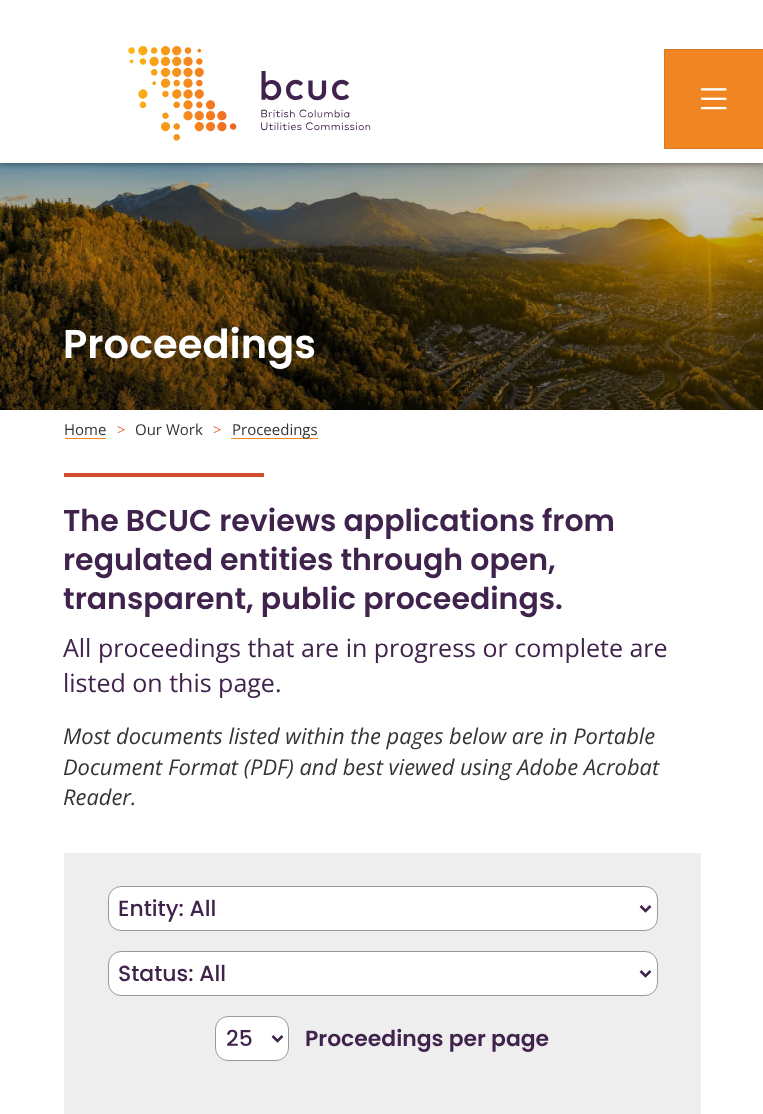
<!DOCTYPE html>
<meta charset="utf-8">
<style>body { margin: 0 } canvas { display: block }</style>
<canvas id="canvas" width="763" height="1114"></canvas>
<script type="module">
  const canvas = document.getElementById("canvas");
  const g = canvas.getContext("2d");
  g.miterLimit = 4;
  g.fontKerning = "normal";
  function drawText(s, x, y, [font, color]) {
    g.font = font;
    g.fillStyle = color;
    g.fillText(s, x, y);
  }
  function fillBox(x, y, w, h, color) {
    g.fillStyle = color;
    g.fillRect(x, y, w, h);
  }
  async function drawPicture(src, x, y, w, h) {
    const img = new Image();
    img.src = src;
    await img.decode();
    g.drawImage(img, x, y, w, h);
  }

  const s1 = ["600 40px Poppins", "#FFFFFF"];
  const s2 = ["15px Open Sans", "#343434"];
  const s3 = ["15px Open Sans", "#E26A29"];
  const s4 = ["600 30px Poppins", "#40234C"];
  const s5 = ["25px Open Sans", "#40234C"];
  const s6 = ["italic 21.9px Open Sans", "#343434"];
  const s7 = ["500 21.9px Poppins", "#40234C"];
  const s8 = ["600 21.9px Poppins", "#40234C"];

  fillBox(0, 0, 763, 1114, "#FFFFFF");
  await drawPicture("pic3.png", 0, 163, 763, 247);
  g.fillStyle = "rgba(0, 0, 0, 0.5)";
  g.filter = "blur(3px)";
  g.beginPath();
  g.rect(0, 0, 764, 163);
  g.fill();
  g.filter = "none";
  fillBox(0, 0, 763, 163, "#FFFFFF");
  await drawPicture("pic1.png", 128, 46, 243, 95);
  g.fillStyle = "#F08521";
  g.beginPath();
  g.rect(664.5, 49.5, 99, 99);
  g.fill();
  g.strokeStyle = "#D8781E";
  g.stroke();
  await drawPicture("pic2.png", 700, 88, 27, 22);
  drawText("Proceedings", 63, 358, s1);
  drawText("Home", 64, 435, s2);
  fillBox(65, 438, 41, 1, "#F08521");
  drawText(">", 117, 435, s3);
  drawText("Our Work", 135, 435, s2);
  drawText(">", 213, 435, s3);
  fillBox(231, 438, 87, 1, "#F08521");
  drawText("Proceedings", 232, 435, s2);
  fillBox(64, 473, 200, 4, "#D14D2E");
  drawText("The BCUC reviews applications from", 63, 531, s4);
  drawText("regulated entities through open,", 63, 570, s4);
  drawText("transparent, public proceedings.", 63, 609, s4);
  drawText("All proceedings that are in progress or complete are", 63, 657, s5);
  drawText("listed on this page.", 63, 692, s5);
  drawText("Most documents listed within the pages below are in Portable", 63, 744, s6);
  drawText("Document Format (PDF) and best viewed using Adobe Acrobat", 63, 775, s6);
  drawText("Reader.", 63, 805, s6);
  fillBox(64, 853, 637, 261, "#EEEEEE");
  g.fillStyle = "#FFFFFF";
  g.beginPath();
  g.roundRect(108.5, 886.5, 549, 44, 12.5);
  g.fill();
  g.strokeStyle = "#97999B";
  g.stroke();
  g.beginPath();
  g.moveTo(640.5, 906);
  g.lineTo(645.5, 911);
  g.lineTo(650.5, 906);
  g.strokeStyle = "#40234C";
  g.lineWidth = 2.5;
  g.stroke();
  drawText("Entity: All", 118, 916, s7);
  g.fillStyle = "#FFFFFF";
  g.beginPath();
  g.roundRect(108.5, 951.5, 549, 44, 12.5);
  g.fill();
  g.strokeStyle = "#97999B";
  g.lineWidth = 1;
  g.stroke();
  g.beginPath();
  g.moveTo(640.5, 971);
  g.lineTo(645.5, 976);
  g.lineTo(650.5, 971);
  g.strokeStyle = "#40234C";
  g.lineWidth = 2.5;
  g.stroke();
  drawText("Status: All", 118, 981, s7);
  g.fillStyle = "#FFFFFF";
  g.beginPath();
  g.roundRect(215.5, 1016.5, 73, 44, 12.5);
  g.fill();
  g.strokeStyle = "#97999B";
  g.lineWidth = 1;
  g.stroke();
  g.beginPath();
  g.moveTo(272.5, 1036);
  g.lineTo(277.5, 1041);
  g.lineTo(282.5, 1036);
  g.strokeStyle = "#40234C";
  g.lineWidth = 2.5;
  g.stroke();
  drawText("25", 226, 1046, s7);
  drawText("Proceedings per page", 305, 1046, s8);
</script>
